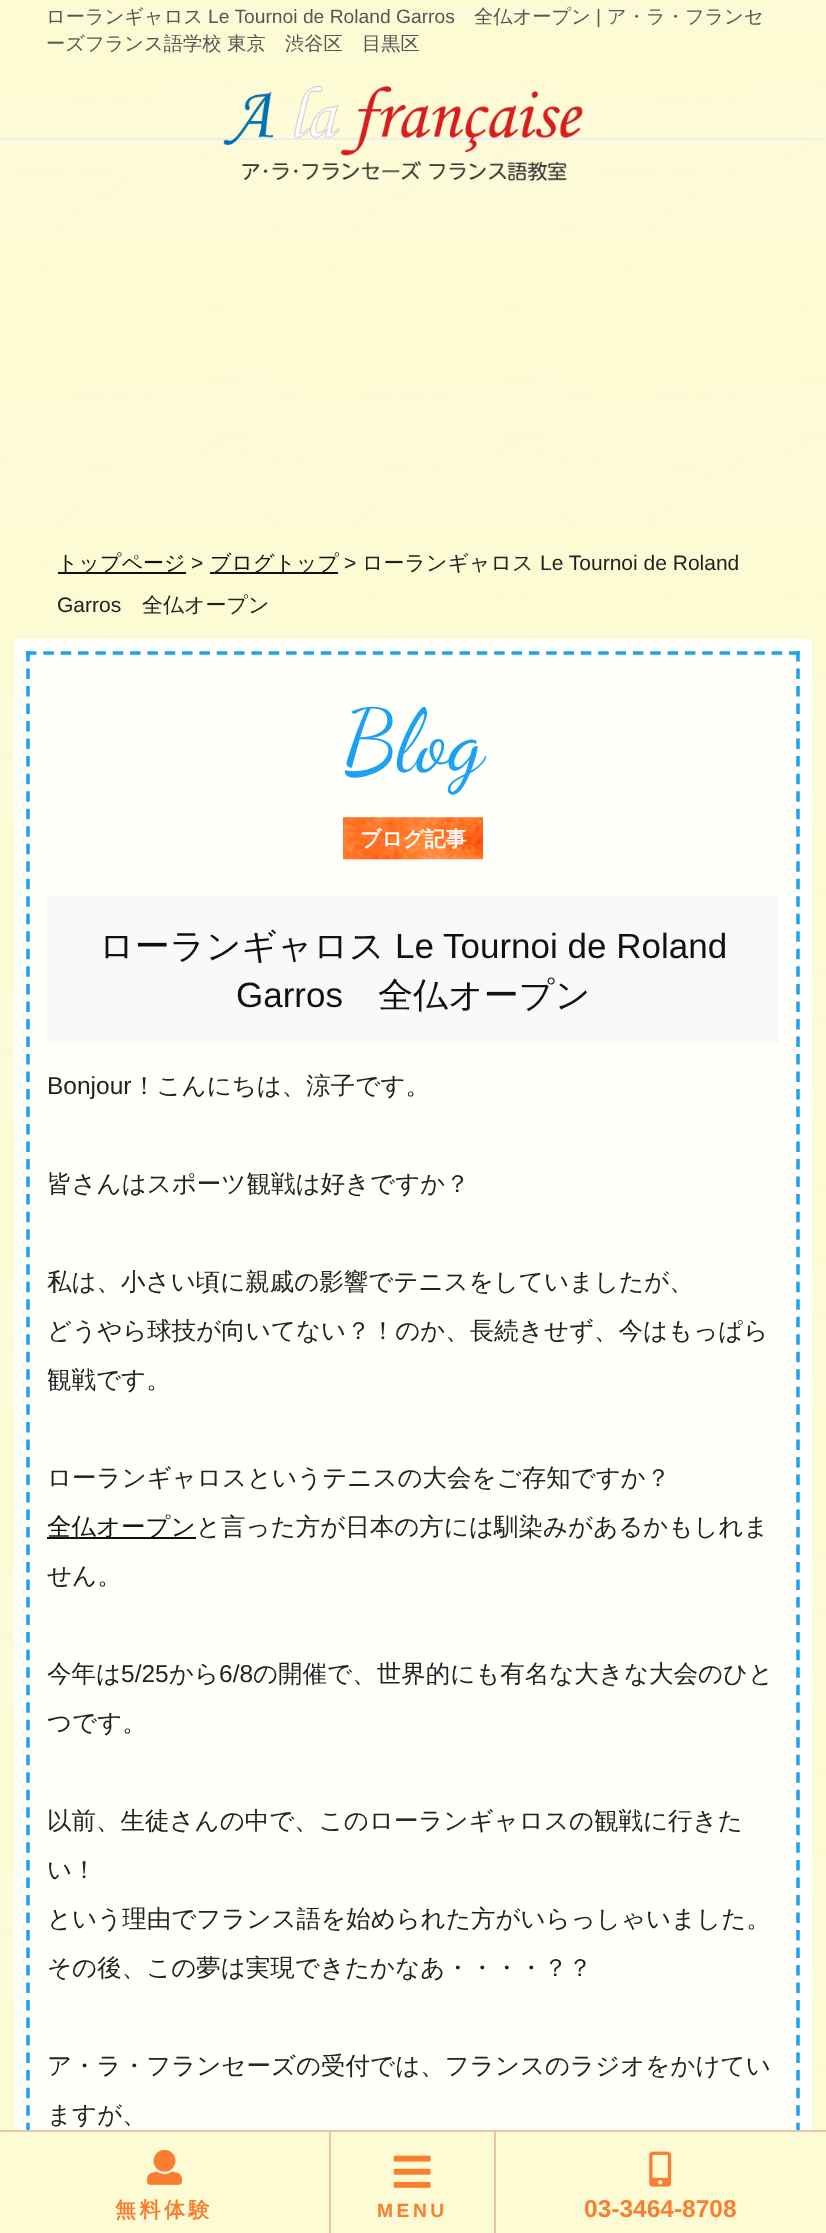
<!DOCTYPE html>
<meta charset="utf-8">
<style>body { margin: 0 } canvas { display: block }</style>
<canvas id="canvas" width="826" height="2233"></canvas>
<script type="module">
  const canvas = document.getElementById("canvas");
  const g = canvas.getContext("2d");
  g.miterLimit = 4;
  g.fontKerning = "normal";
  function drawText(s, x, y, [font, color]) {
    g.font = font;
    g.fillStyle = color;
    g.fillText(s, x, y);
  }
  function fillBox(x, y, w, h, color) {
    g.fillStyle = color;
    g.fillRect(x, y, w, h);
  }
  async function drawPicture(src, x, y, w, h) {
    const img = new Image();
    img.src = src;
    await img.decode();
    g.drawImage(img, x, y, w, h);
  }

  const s1 = ["500 19.25px WenQuanYi Zen Hei", "#565656"];
  const s2 = ["19.25px Liberation Sans", "#565656"];
  const s3 = ["500 21px WenQuanYi Zen Hei", "#111111"];
  const s4 = ["21px Liberation Sans", "#222222"];
  const s5 = ["500 21px WenQuanYi Zen Hei", "#222222"];
  const s6 = ["88px Dancing Script", "#1DA1F3"];
  const s7 = ["bold 21px WenQuanYi Zen Hei", "#FFFFFF"];
  const s8 = ["500 35px WenQuanYi Zen Hei", "#111111"];
  const s9 = ["35px Liberation Sans", "#111111"];
  const s10 = ["24.5px Liberation Sans", "#222222"];
  const s11 = ["500 24.5px WenQuanYi Zen Hei", "#222222"];
  const s12 = ["500 24.5px WenQuanYi Zen Hei", "#111111"];
  const s13 = ["bold 21px WenQuanYi Zen Hei", "#F97E31"];
  const s14 = ["bold 19.25px Liberation Sans", "#F97E31"];
  const s15 = ["bold 24.5px Liberation Sans", "#F97E31"];

  fillBox(0, 0, 826, 2233, "#FFFFFF");
  await drawPicture("pic1.png", 0, 0, 826, 2130);
  await drawPicture("pic2.png", 67, 8, 759, 11);
  g.fillStyle = "#EEEEEE";
  g.beginPath();
  g.moveTo(826, 140);
  g.lineTo(0, 140);
  g.lineTo(2, 138);
  g.lineTo(824, 138);
  g.closePath();
  g.fill();
  drawText("ローランギャロス", 46, 23, s1);
  drawText("Le Tournoi de Roland Garros", 208, 23, s2);
  drawText("全仏オープン", 474, 23, s1);
  drawText("|", 596, 23, s2);
  drawText("ア・ラ・フランセ", 607, 23, s1);
  drawText("ーズフランス語学校 東京　渋谷区　目黒区", 46, 50, s1);
  await drawPicture("pic3.png", 223, 86, 360, 95);
  fillBox(58, 572, 128, 2, "#111111");
  drawText("トップページ", 57, 570, s3);
  drawText(">", 191, 570, s4);
  fillBox(210, 572, 128, 2, "#111111");
  drawText("ブログトップ", 210, 570, s3);
  drawText(">", 344, 570, s4);
  drawText("ローランギャロス", 362, 570, s5);
  drawText("Le Tournoi de Roland", 540, 570, s4);
  drawText("Garros", 57, 612, s4);
  drawText("全仏オープン", 142, 612, s5);
  g.strokeStyle = "rgba(255, 255, 255, 0.9)";
  g.lineWidth = 12;
  g.strokeRect(20, 645, 786, 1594);
  fillBox(26, 651, 774, 1479, "rgba(255, 255, 255, 0.9)");
  g.beginPath();
  g.moveTo(26, 653);
  g.lineTo(800, 653);
  g.strokeStyle = "#1DA1F3";
  g.lineWidth = 3.5;
  g.setLineDash([10.5, 6.84]);
  g.stroke();
  g.beginPath();
  g.moveTo(798, 651);
  g.lineTo(798, 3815);
  g.setLineDash([10.5, 7.02]);
  g.stroke();
  g.beginPath();
  g.moveTo(28, 651);
  g.lineTo(28, 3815);
  g.stroke();
  drawText("Blog", 343, 770, s6);
  await drawPicture("pic4.png", 343, 817, 140, 43);
  drawText("ブログ記事", 360, 846, s7);
  fillBox(47, 896, 732, 147, "#F9F9F9");
  drawText("ローランギャロス", 99, 958, s8);
  drawText("Le Tournoi de Roland", 395, 958, s9);
  drawText("Garros", 236, 1007, s9);
  drawText("全仏オープン", 378, 1007, s8);
  drawText("Bonjour", 47, 1094, s10);
  drawText("！こんにちは、涼子です。", 132, 1094, s11);
  drawText("皆さんはスポーツ観戦は好きですか？", 47, 1192, s11);
  drawText("私は、小さい頃に親戚の影響でテニスをしていましたが、", 47, 1290, s11);
  drawText("どうやら球技が向いてない？！のか、長続きせず、今はもっぱら", 47, 1339, s11);
  drawText("観戦です。", 47, 1388, s11);
  drawText("ローランギャロスというテニスの大会をご存知ですか？", 47, 1486, s11);
  fillBox(47, 1537, 149, 2, "#111111");
  drawText("全仏オープン", 47, 1535, s12);
  drawText("と言った方が日本の方には馴染みがあるかもしれま", 196, 1535, s11);
  drawText("せん。", 47, 1584, s11);
  drawText("今年は", 47, 1682, s11);
  drawText("5/25", 121, 1682, s10);
  drawText("から", 169, 1682, s11);
  drawText("6/8", 219, 1682, s10);
  drawText("の開催で、世界的にも有名な大きな大会のひと", 253, 1682, s11);
  drawText("つです。", 47, 1731, s11);
  drawText("以前、生徒さんの中で、このローランギャロスの観戦に行きた", 47, 1829, s11);
  drawText("い！", 47, 1878, s11);
  drawText("という理由でフランス語を始められた方がいらっしゃいました。", 47, 1927, s11);
  drawText("その後、この夢は実現できたかなあ・・・・？？", 47, 1976, s11);
  drawText("ア・ラ・フランセーズの受付では、フランスのラジオをかけてい", 47, 2074, s11);
  drawText("ますが、", 47, 2123, s11);
  fillBox(0, 2132, 826, 101, "#FDFBD4");
  fillBox(0, 2130, 826, 2, "#EDC5A1");
  fillBox(329, 2132, 2, 101, "#EDC5A1");
  await drawPicture("pic5.png", 147, 2149, 35, 36);
  g.letterSpacing = "3.5px";
  drawText("無料体験", 115, 2217, s13);
  fillBox(494, 2132, 2, 101, "#EDC5A1");
  await drawPicture("pic6.png", 393, 2155, 38, 33);
  drawText("MENU", 377, 2217, s14);
  await drawPicture("pic7.png", 649, 2151, 23, 36);
  g.letterSpacing = "0px";
  drawText("03-3464-8708", 584, 2217, s15);
</script>
